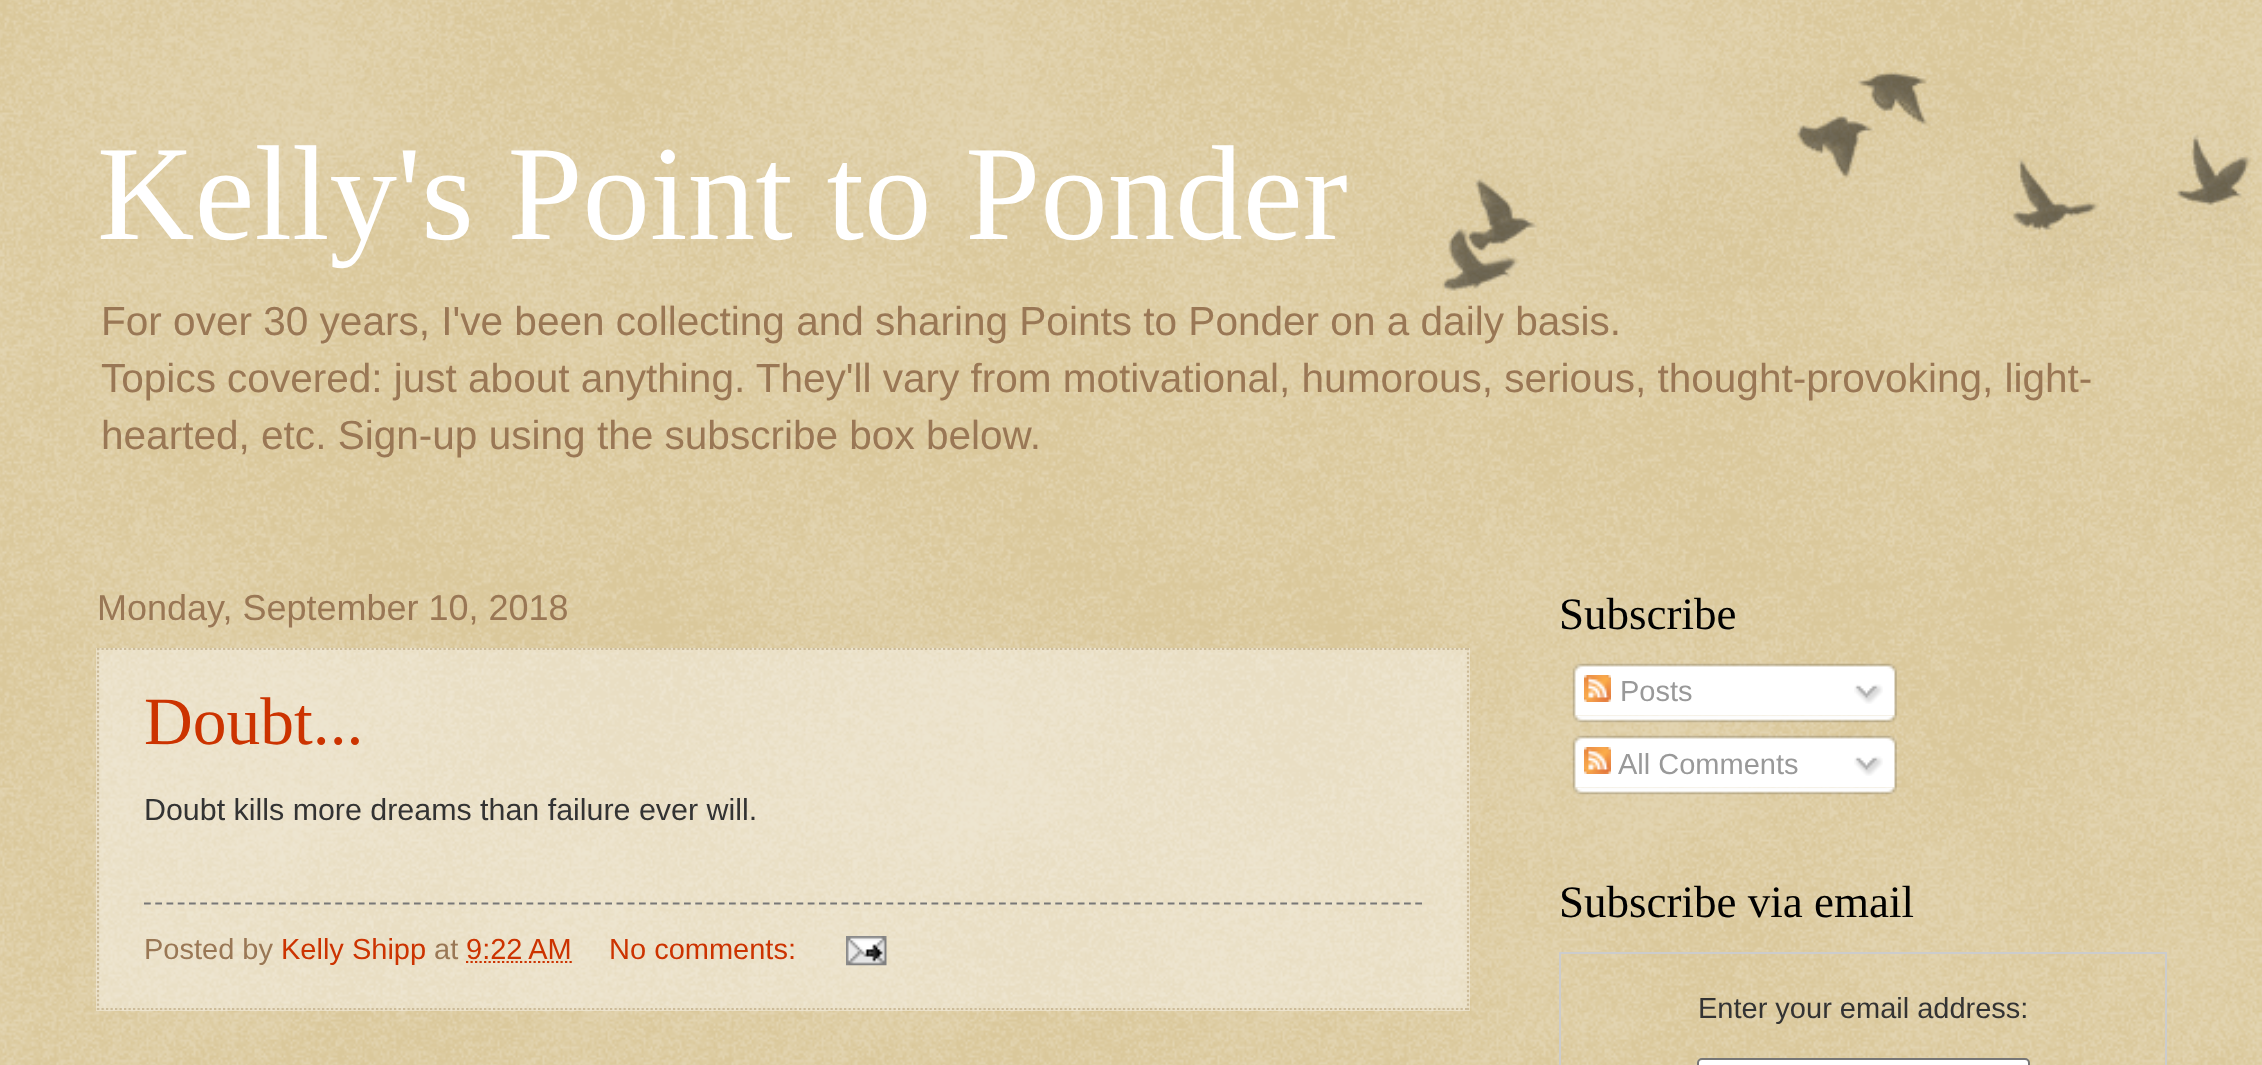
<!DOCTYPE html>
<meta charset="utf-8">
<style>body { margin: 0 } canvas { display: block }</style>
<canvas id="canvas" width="2262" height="1065"></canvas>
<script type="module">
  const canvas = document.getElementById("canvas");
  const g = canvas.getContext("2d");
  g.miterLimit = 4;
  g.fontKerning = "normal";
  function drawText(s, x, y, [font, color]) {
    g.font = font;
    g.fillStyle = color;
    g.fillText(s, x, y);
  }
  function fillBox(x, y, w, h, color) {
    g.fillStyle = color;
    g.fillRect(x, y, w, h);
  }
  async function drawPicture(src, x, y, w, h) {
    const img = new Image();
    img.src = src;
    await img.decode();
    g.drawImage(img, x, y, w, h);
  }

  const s1 = ["135px Liberation Serif", "#FFFFFF"];
  const s2 = ["40.55px Liberation Sans", "#997755"];
  const s3 = ["36px Liberation Sans", "#997755"];
  const s4 = ["67.5px Liberation Serif", "#CC3300"];
  const s5 = ["30.4px Liberation Sans", "#333333"];
  const s6 = ["29px Liberation Sans", "#997755"];
  const s7 = ["29px Liberation Sans", "#CC3300"];
  const s8 = ["45px Liberation Serif", "#000000"];
  const s9 = ["29px Liberation Sans", "#999999"];
  const s10 = ["29px Liberation Sans", "#333333"];

  fillBox(0, 0, 2262, 1065, "#C0A154");
  await drawPicture("pic1.png", 0, 0, 2262, 1065);
  await drawPicture("pic2.png", 1442, 72, 809, 219);
  drawText("Kelly's Point to Ponder", 97, 239, s1);
  drawText("For over 30 years, I've been collecting and sharing Points to Ponder on a daily basis.", 101, 335, s2);
  g.wordSpacing = "-0.1px";
  drawText("Topics covered: just about anything. They'll vary from motivational, humorous, serious, thought-provoking, light-", 101, 392, s2);
  g.wordSpacing = "0px";
  drawText("hearted, etc. Sign-up using the subscribe box below.", 101, 449, s2);
  drawText("Monday, September 10, 2018", 97, 620, s3);
  fillBox(96, 648, 1374, 363, "rgba(255, 255, 255, 0.4)");
  g.beginPath();
  g.moveTo(97, 649);
  g.lineTo(1469, 649);
  g.strokeStyle = "#CCBB99";
  g.lineWidth = 2.2;
  g.setLineDash([2.25, 2.25]);
  g.stroke();
  g.beginPath();
  g.moveTo(1468, 648);
  g.lineTo(1468, 1010);
  g.stroke();
  g.beginPath();
  g.moveTo(97, 1009);
  g.lineTo(1469, 1009);
  g.stroke();
  g.beginPath();
  g.moveTo(98, 648);
  g.lineTo(98, 1010);
  g.stroke();
  drawText("Doubt...", 144, 744, s4);
  drawText("Doubt kills more dreams than failure ever will.", 144, 820, s5);
  g.beginPath();
  g.moveTo(144, 903.5);
  g.lineTo(1422, 903.5);
  g.strokeStyle = "#777777";
  g.setLineDash([6.75, 4.5]);
  g.stroke();
  drawText("Posted by", 144, 959, s6);
  drawText("Kelly Shipp", 281, 959, s7);
  drawText("at", 434, 959, s6);
  drawText("9:22 AM", 466, 959, s7);
  g.beginPath();
  g.moveTo(466, 962);
  g.lineTo(572, 962);
  g.strokeStyle = "#CC3300";
  g.setLineDash([2.25, 2.25]);
  g.stroke();
  drawText("No comments:", 609, 959, s7);
  await drawPicture("pic3.png", 846, 936, 41, 30);
  drawText("Subscribe", 1559, 629, s8);
  await drawPicture("pic4.png", 1572, 663, 325, 53);
  await drawPicture("pic5.png", 1584, 675, 27, 27);
  drawText("Posts", 1620, 701, s9);
  await drawPicture("pic6.png", 1854, 684, 29, 20);
  await drawPicture("pic7.png", 1573, 715, 324, 8);
  await drawPicture("pic8.png", 1572, 735, 325, 53);
  await drawPicture("pic5.png", 1584, 747, 27, 27);
  drawText("All Comments", 1618, 774, s9);
  await drawPicture("pic6.png", 1854, 756, 29, 20);
  await drawPicture("pic9.png", 1573, 787, 324, 8);
  drawText("Subscribe via email", 1559, 917, s8);
  g.strokeStyle = "#CCCCCC";
  g.lineWidth = 2;
  g.setLineDash([]);
  g.strokeRect(1560, 953, 606, 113);
  drawText("Enter your email address:", 1698, 1018, s10);
  g.fillStyle = "#FFFFFF";
  g.beginPath();
  g.roundRect(1698, 1059, 331, 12, 4);
  g.fill();
  g.strokeStyle = "#767676";
  g.stroke();
</script>
